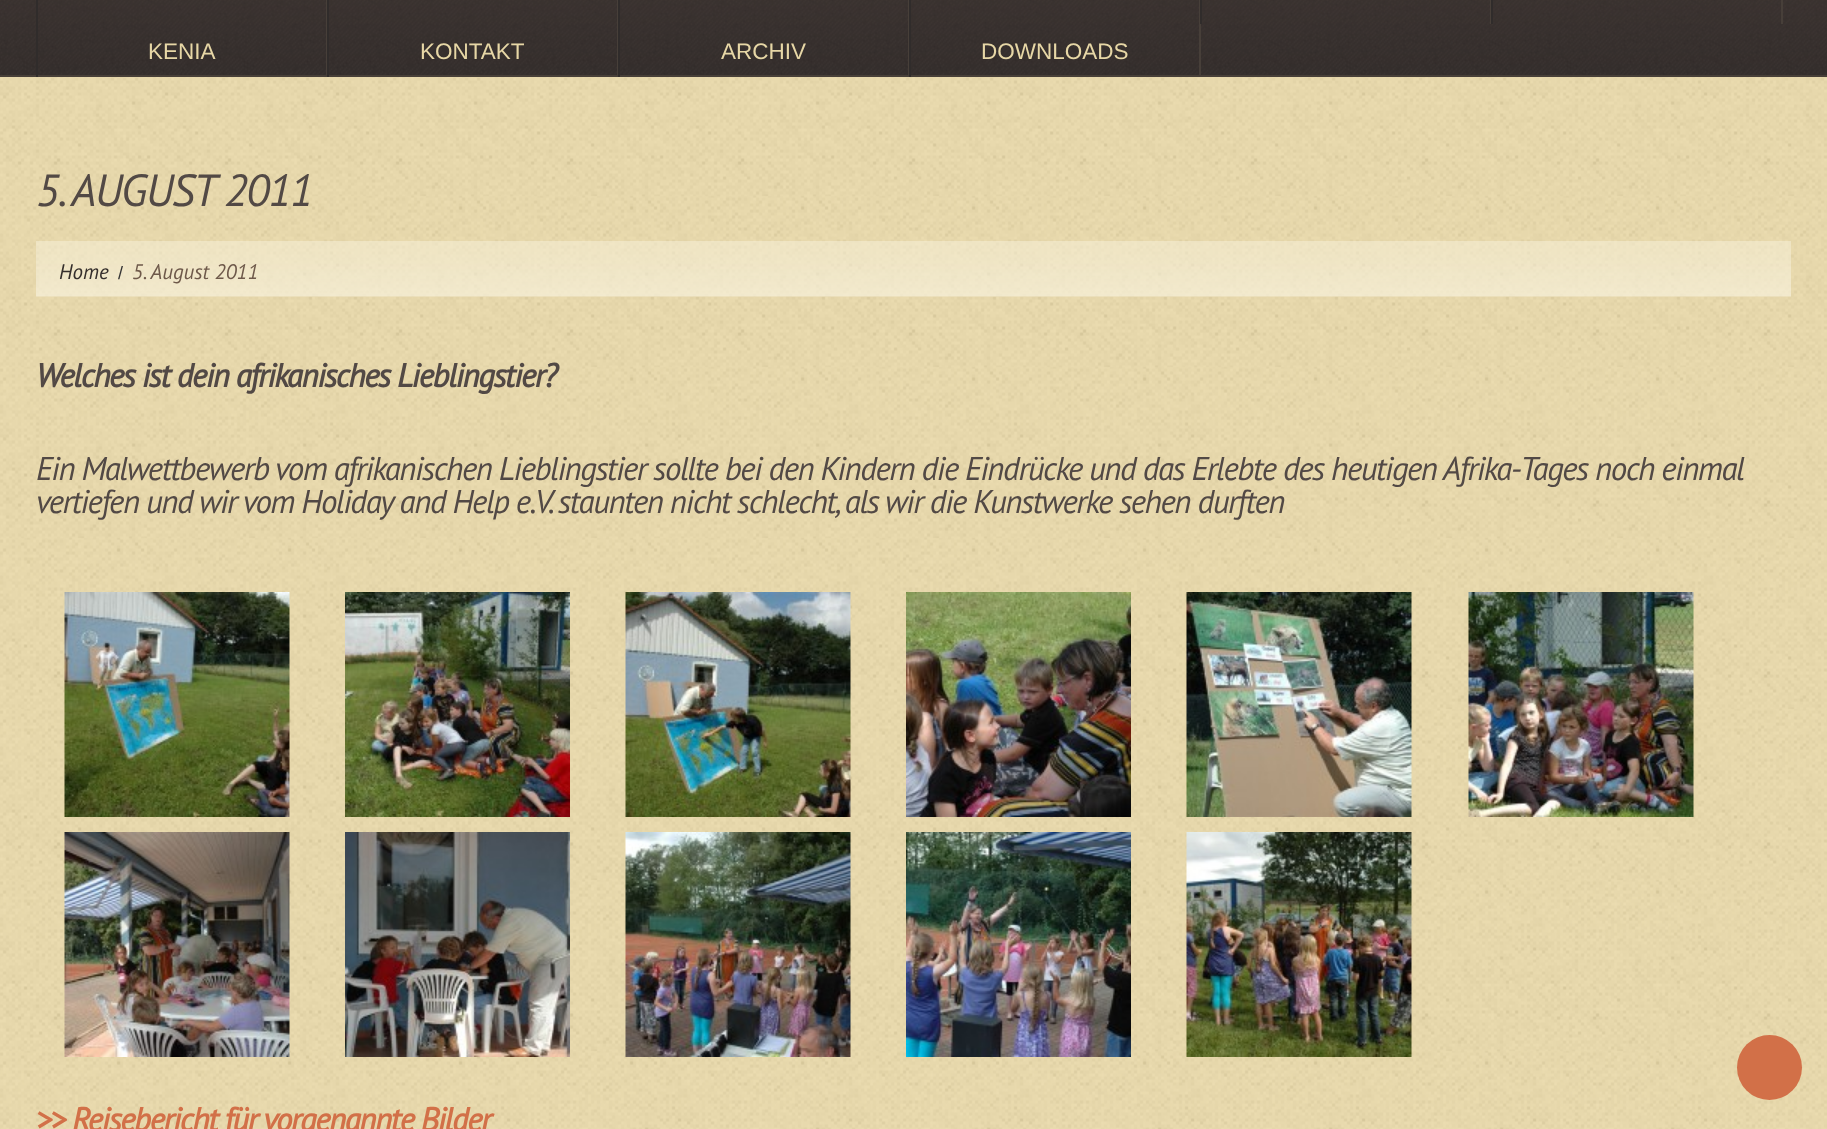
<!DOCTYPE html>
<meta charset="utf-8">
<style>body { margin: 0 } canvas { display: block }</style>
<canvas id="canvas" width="1827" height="1129"></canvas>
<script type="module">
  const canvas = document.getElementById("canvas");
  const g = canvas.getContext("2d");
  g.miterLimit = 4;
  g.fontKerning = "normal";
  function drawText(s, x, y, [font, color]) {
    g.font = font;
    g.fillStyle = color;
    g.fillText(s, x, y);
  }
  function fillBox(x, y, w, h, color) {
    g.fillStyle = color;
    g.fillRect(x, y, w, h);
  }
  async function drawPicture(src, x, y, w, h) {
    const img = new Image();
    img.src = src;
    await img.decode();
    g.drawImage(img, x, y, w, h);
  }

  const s1 = ["22.5px Liberation Sans", "#E7D7A6"];
  const s2 = ["italic 45px PT Sans", "#524945"];
  const s3 = ["italic 21px PT Sans", "#352F2C"];
  const s4 = ["18px Liberation Sans", "#333333"];
  const s5 = ["italic 21px PT Sans", "#6E594A"];
  const s6 = ["italic bold 33px PT Sans", "#524945"];
  const s7 = ["italic 33px PT Sans", "#524945"];
  const s8 = ["italic bold 33px PT Sans", "#D27048"];

  fillBox(0, 0, 1827, 1129, "#FFFFFF");
  await drawPicture("pic1.png", 0, 77, 1827, 1052);
  await drawPicture("pic2.png", 0, 0, 1827, 75);
  fillBox(0, 75, 1827, 2, "#473F38");
  fillBox(326, 0, 1, 77, "#473F39");
  fillBox(36, 0, 2, 77, "#302C2B");
  fillBox(617, 0, 1, 77, "#473F39");
  fillBox(327, 0, 2, 77, "#302C2B");
  fillBox(908, 0, 1, 77, "#473F39");
  fillBox(618, 0, 2, 77, "#302C2B");
  fillBox(1199, 0, 1, 24, "#473F39");
  fillBox(909, 0, 2, 77, "#302C2B");
  fillBox(1490, 0, 1, 24, "#473F39");
  fillBox(1200, 0, 2, 24, "#302C2B");
  fillBox(1781, 0, 2, 24, "#473F39");
  fillBox(1491, 0, 2, 24, "#302C2B");
  drawText("KENIA", 148, 59, s1);
  drawText("KONTAKT", 420, 59, s1);
  drawText("ARCHIV", 721, 59, s1);
  fillBox(1199, 24, 2, 53, "#473F39");
  drawText("DOWNLOADS", 981, 59, s1);
  g.letterSpacing = "-1.5px";
  drawText("5. AUGUST 2011", 36, 206, s2);
  await drawPicture("pic3.png", 36, 241, 1755, 56);
  g.letterSpacing = "0px";
  drawText("Home", 59, 279, s3);
  drawText("/", 118, 279, s4);
  drawText("5. August 2011", 132, 279, s5);
  g.letterSpacing = "-1.5px";
  drawText("Welches ist dein afrikanisches Lieblingstier?", 36, 387, s6);
  drawText("Ein Malwettbewerb vom afrikanischen Lieblingstier sollte bei den Kindern die Eindrücke und das Erlebte des heutigen Afrika-Tages noch einmal", 36, 480, s7);
  drawText("vertiefen und wir vom Holiday and Help e.V. staunten nicht schlecht, als wir die Kunstwerke sehen durften", 36, 513, s7);
  await drawPicture("pic4.png", 64, 592, 226, 225);
  await drawPicture("pic5.png", 345, 592, 225, 225);
  await drawPicture("pic6.png", 625, 592, 226, 225);
  await drawPicture("pic7.png", 906, 592, 225, 225);
  await drawPicture("pic8.png", 1186, 592, 226, 225);
  await drawPicture("pic9.png", 1468, 592, 226, 225);
  await drawPicture("pic10.png", 64, 832, 226, 225);
  await drawPicture("pic11.png", 345, 832, 225, 225);
  await drawPicture("pic12.png", 625, 832, 226, 225);
  await drawPicture("pic13.png", 906, 832, 225, 225);
  await drawPicture("pic14.png", 1186, 832, 226, 225);
  drawText(">> Reisebericht für vorgenannte Bilder", 36, 1131, s8);
  g.beginPath();
  g.arc(1769.5, 1067.5, 32.5, 0, Math.PI * 2);
  g.fill();
</script>
